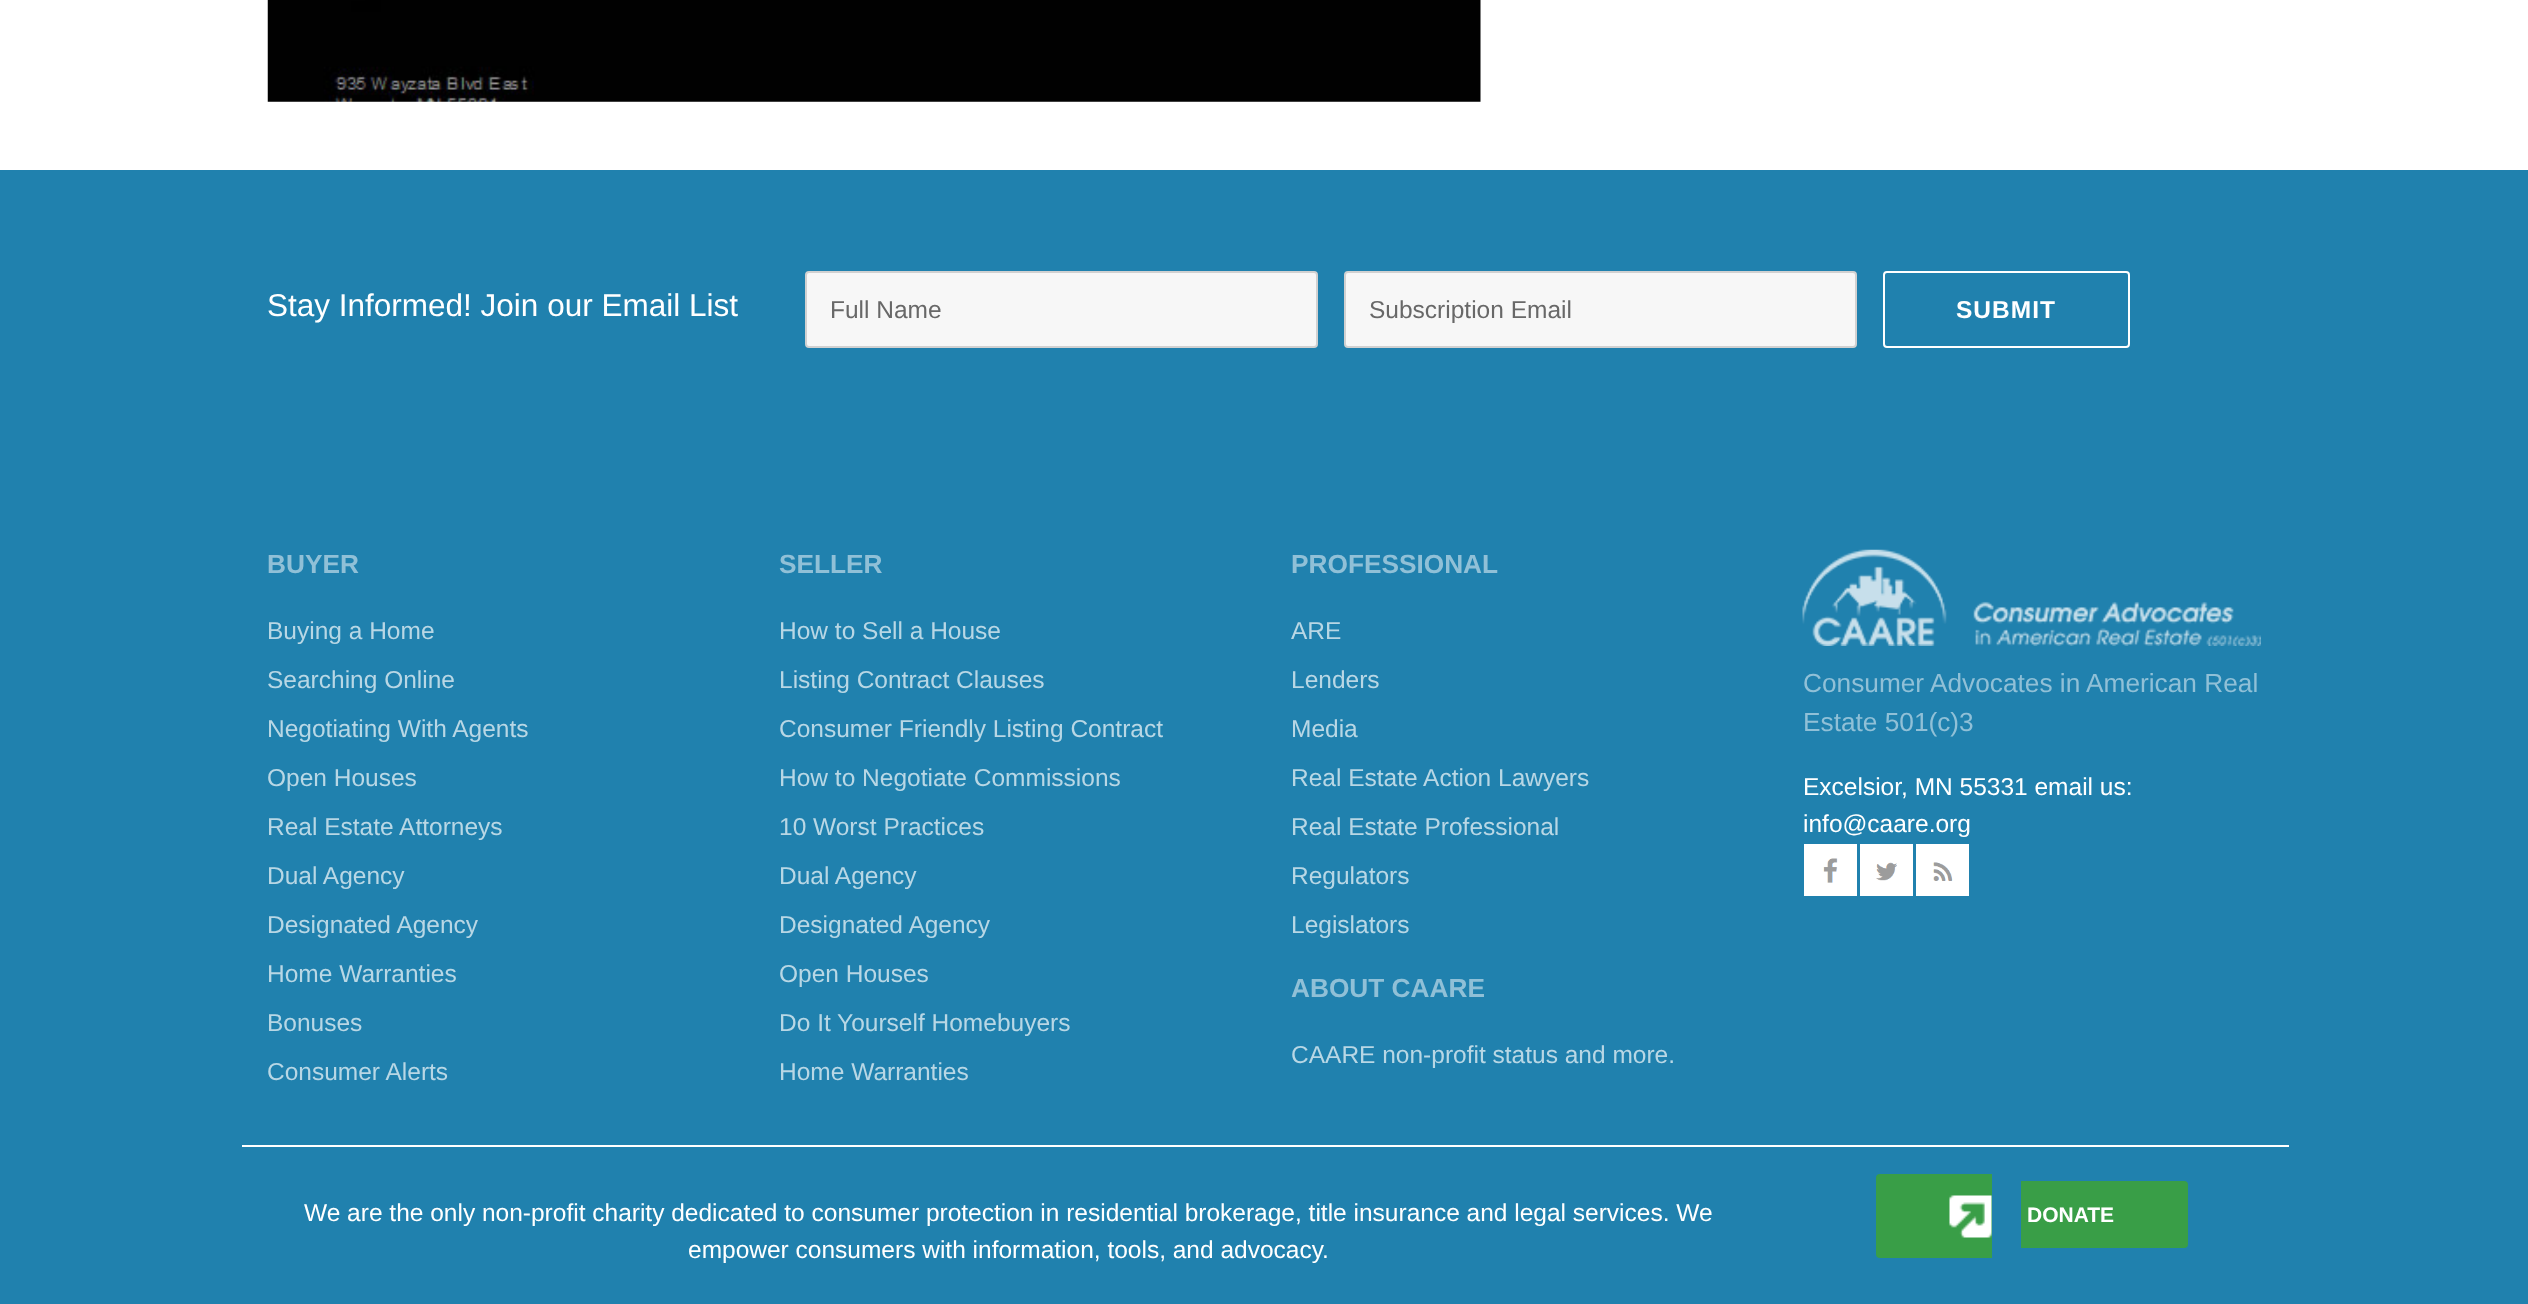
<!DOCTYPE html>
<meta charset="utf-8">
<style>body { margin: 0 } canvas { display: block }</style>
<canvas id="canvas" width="2528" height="1304"></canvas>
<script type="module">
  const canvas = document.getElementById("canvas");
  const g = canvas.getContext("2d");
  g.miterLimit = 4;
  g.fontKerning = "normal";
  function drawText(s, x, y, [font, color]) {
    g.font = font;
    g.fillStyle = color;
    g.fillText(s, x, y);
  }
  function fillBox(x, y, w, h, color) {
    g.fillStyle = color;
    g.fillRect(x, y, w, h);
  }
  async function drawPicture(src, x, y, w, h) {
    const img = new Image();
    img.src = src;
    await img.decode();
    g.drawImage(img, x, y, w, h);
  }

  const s1 = ["31.5px Liberation Sans", "#FFFFFF"];
  const s2 = ["24.5px Liberation Sans", "#686868"];
  const s3 = ["bold 24.5px Liberation Sans", "#FFFFFF"];
  const s4 = ["bold 26.25px Liberation Sans", "#90C0D7"];
  const s5 = ["24.5px Liberation Sans", "#B8D7E5"];
  const s6 = ["26.25px Liberation Sans", "#90C0D7"];
  const s7 = ["24.5px Liberation Sans", "#FFFFFF"];
  const s8 = ["bold 21px Liberation Sans", "#FFFFFF"];

  fillBox(0, 0, 2528, 1304, "#FFFFFF");
  await drawPicture("pic1.png", 267, 0, 1214, 102);
  fillBox(0, 170, 2528, 1134, "#2081AE");
  drawText("Stay Informed! Join our Email List", 267, 316, s1);
  g.fillStyle = "#F7F7F7";
  g.beginPath();
  g.roundRect(806, 272, 511, 75, 3);
  g.fill();
  g.strokeStyle = "#D1D1D1";
  g.lineWidth = 2;
  g.stroke();
  drawText("Full Name", 830, 318, s2);
  g.fillStyle = "#F7F7F7";
  g.beginPath();
  g.roundRect(1345, 272, 511, 75, 3);
  g.fill();
  g.stroke();
  drawText("Subscription Email", 1369, 318, s2);
  g.beginPath();
  g.roundRect(1884, 272, 245, 75, 3);
  g.strokeStyle = "#FFFFFF";
  g.stroke();
  g.letterSpacing = "1px";
  drawText("SUBMIT", 1956, 318, s3);
  g.letterSpacing = "0px";
  drawText("BUYER", 267, 573, s4);
  drawText("Buying a Home", 267, 639, s5);
  drawText("Searching Online", 267, 688, s5);
  drawText("Negotiating With Agents", 267, 737, s5);
  drawText("Open Houses", 267, 786, s5);
  drawText("Real Estate Attorneys", 267, 835, s5);
  drawText("Dual Agency", 267, 884, s5);
  drawText("Designated Agency", 267, 933, s5);
  drawText("Home Warranties", 267, 982, s5);
  drawText("Bonuses", 267, 1031, s5);
  drawText("Consumer Alerts", 267, 1080, s5);
  drawText("SELLER", 779, 573, s4);
  drawText("How to Sell a House", 779, 639, s5);
  drawText("Listing Contract Clauses", 779, 688, s5);
  drawText("Consumer Friendly Listing Contract", 779, 737, s5);
  drawText("How to Negotiate Commissions", 779, 786, s5);
  drawText("10 Worst Practices", 779, 835, s5);
  drawText("Dual Agency", 779, 884, s5);
  drawText("Designated Agency", 779, 933, s5);
  drawText("Open Houses", 779, 982, s5);
  drawText("Do It Yourself Homebuyers", 779, 1031, s5);
  drawText("Home Warranties", 779, 1080, s5);
  drawText("PROFESSIONAL", 1291, 573, s4);
  drawText("ARE", 1291, 639, s5);
  drawText("Lenders", 1291, 688, s5);
  drawText("Media", 1291, 737, s5);
  drawText("Real Estate Action Lawyers", 1291, 786, s5);
  drawText("Real Estate Professional", 1291, 835, s5);
  drawText("Regulators", 1291, 884, s5);
  drawText("Legislators", 1291, 933, s5);
  drawText("ABOUT CAARE", 1291, 997, s4);
  drawText("CAARE non-profit status and more.", 1291, 1063, s5);
  await drawPicture("pic2.png", 1802, 549, 459, 97);
  drawText("Consumer Advocates in American Real", 1803, 692, s6);
  drawText("Estate 501(c)3", 1803, 731, s6);
  drawText("Excelsior, MN 55331 email us:", 1803, 795, s7);
  drawText("info@caare.org", 1803, 832, s7);
  fillBox(1804, 844, 53, 52, "#FFFFFF");
  await drawPicture("pic3.png", 1823, 858, 15, 25);
  fillBox(1860, 844, 53, 52, "#FFFFFF");
  await drawPicture("pic4.png", 1876, 862, 21, 19);
  fillBox(1916, 844, 53, 52, "#FFFFFF");
  await drawPicture("pic5.png", 1933, 862, 20, 19);
  fillBox(242, 1145, 2047, 2, "#FFFFFF");
  drawText("We are the only non-profit charity dedicated to consumer protection in residential brokerage, title insurance and legal services. We", 304, 1221, s7);
  drawText("empower consumers with information, tools, and advocacy.", 688, 1258, s7);
  g.fillStyle = "#399E47";
  g.beginPath();
  g.roundRect(1876, 1174, 116, 84, [4, 0, 0, 4]);
  g.fill();
  await drawPicture("pic6.png", 1949, 1195, 43, 43);
  g.beginPath();
  g.roundRect(2021, 1181, 167, 67, [0, 4, 4, 0]);
  g.fill();
  drawText("DONATE", 2027, 1222, s8);
</script>
